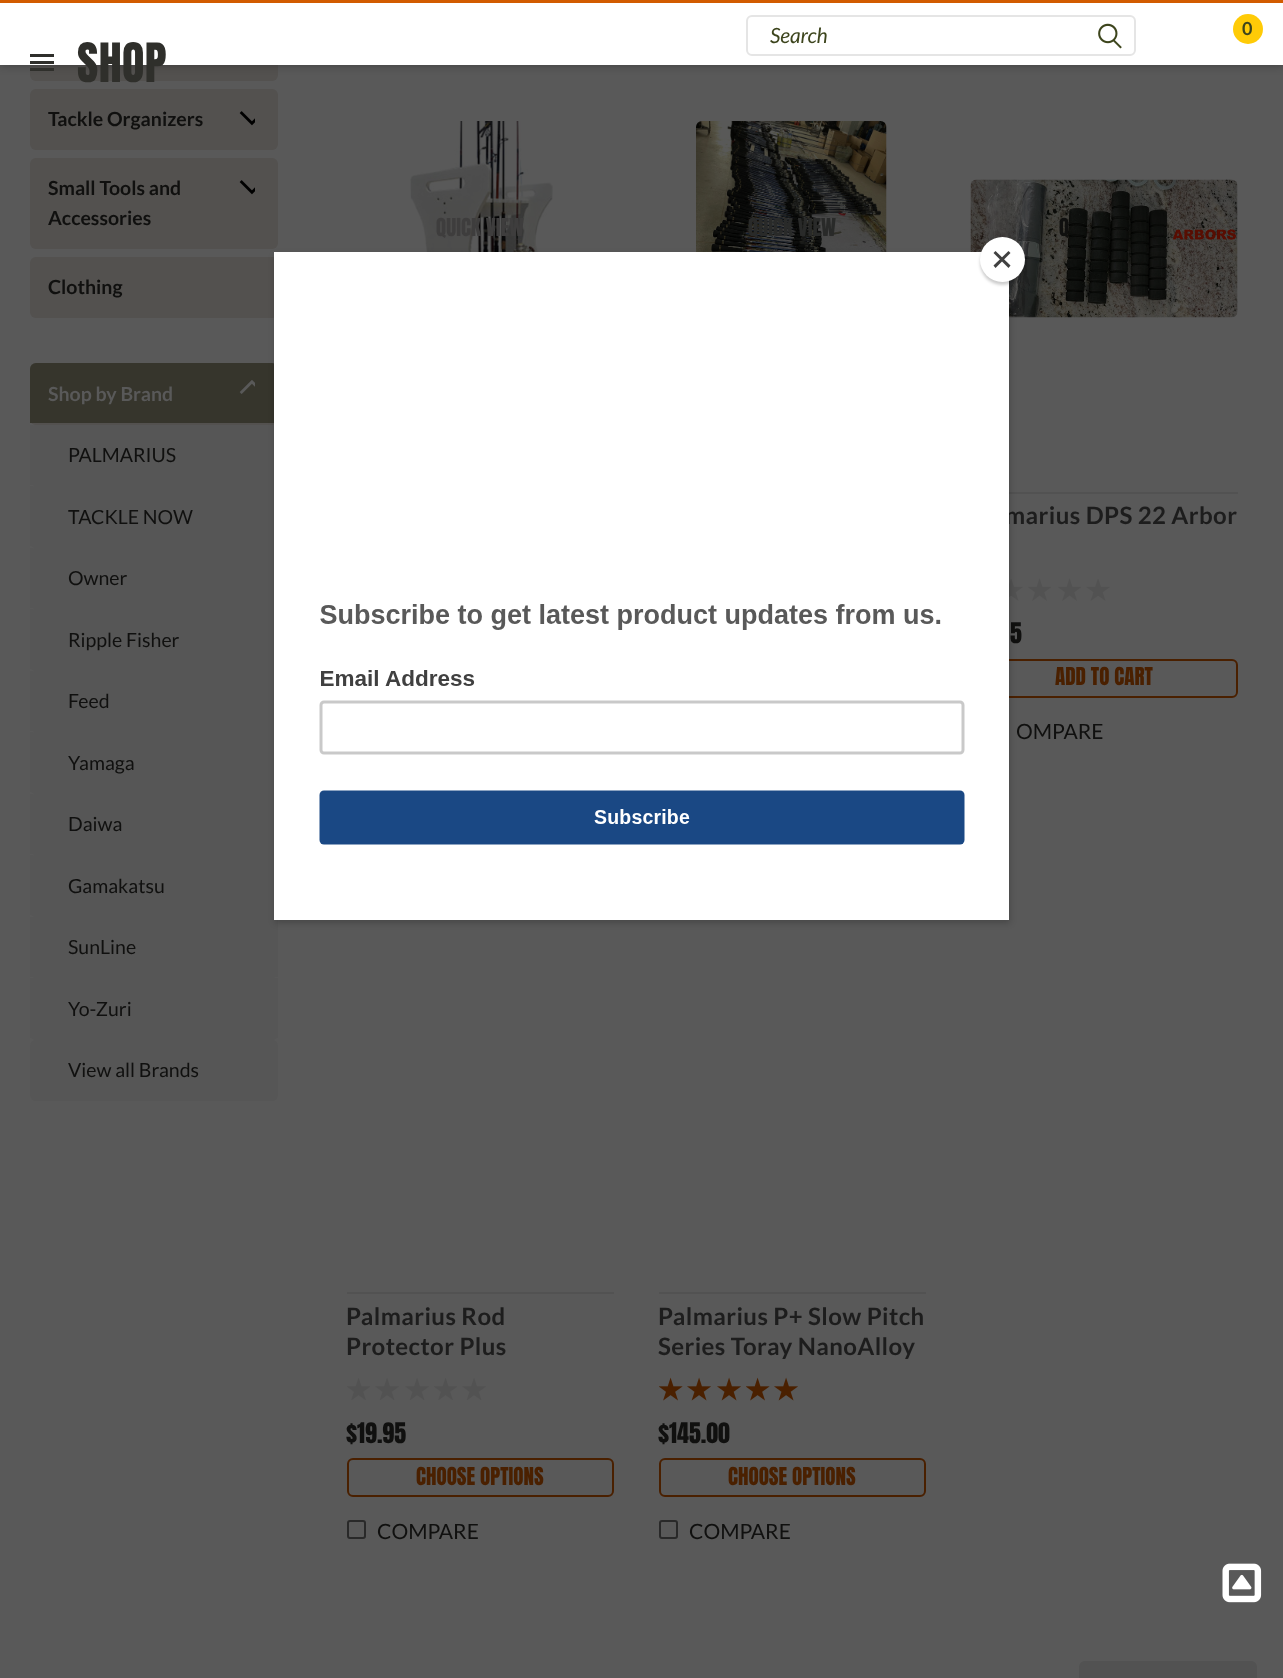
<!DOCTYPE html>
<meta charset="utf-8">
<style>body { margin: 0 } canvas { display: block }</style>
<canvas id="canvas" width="1283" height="1678"></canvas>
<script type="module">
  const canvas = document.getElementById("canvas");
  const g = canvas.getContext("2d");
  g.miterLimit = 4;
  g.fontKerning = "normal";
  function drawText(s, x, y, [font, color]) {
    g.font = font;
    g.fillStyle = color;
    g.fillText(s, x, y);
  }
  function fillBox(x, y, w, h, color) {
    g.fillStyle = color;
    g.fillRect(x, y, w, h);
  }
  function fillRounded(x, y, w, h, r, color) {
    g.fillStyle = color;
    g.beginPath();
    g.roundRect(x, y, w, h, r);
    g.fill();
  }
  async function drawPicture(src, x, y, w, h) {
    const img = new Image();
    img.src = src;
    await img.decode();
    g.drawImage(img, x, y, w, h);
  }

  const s1 = ["italic 21px Lato", "#3D451D"];
  const s2 = ["bold 18px Lato", "#3D451D"];
  const s3 = ["46px Anton", "#2F2F2B"];
  const s4 = ["bold 19.5px Lato", "#10100F"];
  const s5 = ["bold 19.5px Lato", "#595959"];
  const s6 = ["19.5px Lato", "#10100F"];
  const s7 = ["21px Anton", "#3E3D3D"];
  const s8 = ["21px Anton", "#292A29"];
  const s9 = ["21px Anton", "#10100F"];
  const s10 = ["bold 24px Lato", "#1D1D1D"];
  const s11 = ["24px Anton", "#10100F"];
  const s12 = ["21px Anton", "#4A2000"];
  const s13 = ["21px Lato", "#10100F"];

  fillBox(0, 0, 1283, 1678, "#595959");
  fillRounded(30, 20, 248, 61, 6, "#53514F");
  g.fillStyle = "rgba(0, 0, 0, 0.3)";
  g.filter = "blur(5px)";
  g.beginPath();
  g.rect(0, 0, 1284, 65);
  g.fill();
  g.filter = "none";
  fillBox(0, 3, 1283, 62, "#FFFFFF");
  fillBox(0, 0, 1283, 3, "#D25B00");
  g.beginPath();
  g.roundRect(747, 16, 388, 39, 5);
  g.strokeStyle = "#E5E5E5";
  g.lineWidth = 2;
  g.stroke();
  drawText("Search", 770, 43, s1);
  await drawPicture("pic1.png", 1098, 23, 24, 26);
  g.fillStyle = "#FFCB07";
  g.beginPath();
  g.arc(1248, 29, 15, 0, Math.PI * 2);
  g.fill();
  drawText("0", 1242, 35, s2);
  fillBox(30, 54, 24, 3, "#2F2F2B");
  fillBox(30, 61, 24, 3, "#2F2F2B");
  fillBox(30, 68, 24, 3, "#2F2F2B");
  g.letterSpacing = "0.4px";
  drawText("SHOP", 77, 82, s3);
  fillRounded(30, 89, 248, 61, 6, "#53514F");
  g.letterSpacing = "0px";
  drawText("Tackle Organizers", 48, 126, s4);
  await drawPicture("pic2.png", 239, 111, 16, 15);
  fillRounded(30, 158, 248, 91, 6, "#53514F");
  drawText("Small Tools and", 48, 195, s4);
  drawText("Accessories", 48, 225, s4);
  await drawPicture("pic2.png", 239, 180, 16, 15);
  fillRounded(30, 257, 248, 61, 6, "#53514F");
  drawText("Clothing", 48, 294, s4);
  fillRounded(30, 363, 248, 62, 6, "#53514F");
  g.fillStyle = "#36352C";
  g.beginPath();
  g.roundRect(30, 363, 248, 60, [6, 6, 0, 0]);
  g.fill();
  drawText("Shop by Brand", 48, 401, s5);
  await drawPicture("pic3.png", 239, 380, 16, 14);
  fillRounded(30, 425, 248, 61, 6, "#565656");
  fillBox(30, 425, 3, 60, "#565656");
  drawText("PALMARIUS", 68, 462, s6);
  fillRounded(30, 486, 248, 62, 6, "#565656");
  fillBox(30, 486, 3, 60, "#565656");
  drawText("TACKLE NOW", 68, 524, s6);
  fillRounded(30, 548, 248, 61, 6, "#565656");
  fillBox(30, 548, 3, 60, "#565656");
  drawText("Owner", 68, 585, s6);
  fillRounded(30, 609, 248, 62, 6, "#565656");
  fillBox(30, 609, 3, 60, "#565656");
  drawText("Ripple Fisher", 68, 647, s6);
  fillRounded(30, 671, 248, 61, 6, "#565656");
  fillBox(30, 671, 3, 60, "#565656");
  drawText("Feed", 68, 708, s6);
  fillRounded(30, 732, 248, 62, 6, "#565656");
  fillBox(30, 732, 3, 60, "#565656");
  drawText("Yamaga", 68, 770, s6);
  fillRounded(30, 794, 248, 61, 6, "#565656");
  fillBox(30, 794, 3, 60, "#565656");
  drawText("Daiwa", 68, 831, s6);
  fillRounded(30, 855, 248, 62, 6, "#565656");
  fillBox(30, 855, 3, 60, "#565656");
  drawText("Gamakatsu", 68, 893, s6);
  fillRounded(30, 917, 248, 61, 6, "#565656");
  fillBox(30, 917, 248, 60, "#565656");
  drawText("SunLine", 68, 954, s6);
  fillRounded(30, 978, 248, 62, 6, "#565656");
  fillBox(30, 978, 248, 60, "#565656");
  drawText("Yo-Zuri", 68, 1016, s6);
  fillRounded(30, 1040, 248, 61, 6, "#565656");
  drawText("View all Brands", 68, 1077, s6);
  await drawPicture("pic4.png", 410, 121, 143, 131);
  drawText("QUICK VIEW", 436, 236, s7);
  await drawPicture("pic5.png", 696, 121, 191, 131);
  drawText("QUICK VIEW", 748, 236, s8);
  await drawPicture("pic6.png", 970, 179, 268, 139);
  drawText("Q", 1059, 236, s9);
  fillBox(1009, 492, 229, 2, "#525252");
  g.letterSpacing = "0.4px";
  drawText("marius DPS 22 Arbor", 1005, 524, s10);
  await drawPicture("pic7.png", 1009, 579, 14, 22);
  await drawPicture("pic8.png", 1028, 578, 23, 23);
  await drawPicture("pic8.png", 1058, 578, 23, 23);
  await drawPicture("pic9.png", 1086, 579, 24, 22);
  g.letterSpacing = "0px";
  drawText("5", 1010, 643, s11);
  g.beginPath();
  g.roundRect(972, 660, 265, 37, 5);
  g.strokeStyle = "#4A2000";
  g.stroke();
  drawText("ADD TO CART", 1055, 685, s12);
  drawText("OMPARE", 1016, 739, s13);
  fillBox(347, 1292, 267, 2, "#525252");
  g.letterSpacing = "0.4px";
  drawText("Palmarius Rod", 346, 1325, s10);
  drawText("Protector Plus", 346, 1355, s10);
  await drawPicture("pic10.png", 347, 1378, 23, 22);
  await drawPicture("pic11.png", 375, 1378, 24, 22);
  await drawPicture("pic11.png", 405, 1378, 24, 22);
  await drawPicture("pic10.png", 434, 1378, 23, 22);
  await drawPicture("pic11.png", 462, 1378, 24, 22);
  g.letterSpacing = "0px";
  drawText("$19.95", 346, 1443, s11);
  g.beginPath();
  g.roundRect(348, 1459, 265, 37, 5);
  g.stroke();
  drawText("CHOOSE OPTIONS", 416, 1485, s12);
  g.beginPath();
  g.roundRect(348, 1521, 17, 17, 2);
  g.strokeStyle = "#292929";
  g.stroke();
  drawText("COMPARE", 377, 1539, s13);
  fillBox(659, 1292, 267, 2, "#525252");
  g.letterSpacing = "0.4px";
  drawText("Palmarius P+ Slow Pitch", 658, 1325, s10);
  drawText("Series Toray NanoAlloy", 658, 1355, s10);
  await drawPicture("pic12.png", 659, 1377, 24, 24);
  await drawPicture("pic13.png", 687, 1377, 24, 24);
  await drawPicture("pic13.png", 717, 1377, 24, 24);
  await drawPicture("pic12.png", 746, 1377, 24, 24);
  await drawPicture("pic13.png", 774, 1377, 24, 24);
  g.letterSpacing = "0px";
  drawText("$145.00", 658, 1443, s11);
  g.beginPath();
  g.roundRect(660, 1459, 265, 37, 5);
  g.strokeStyle = "#4A2000";
  g.stroke();
  drawText("CHOOSE OPTIONS", 728, 1485, s12);
  g.beginPath();
  g.roundRect(660, 1521, 17, 17, 2);
  g.strokeStyle = "#292929";
  g.stroke();
  drawText("COMPARE", 689, 1539, s13);
  fillRounded(1079, 1661, 178, 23, 6, "#525252");
  g.fillStyle = "rgba(0, 0, 0, 0.2)";
  g.filter = "blur(3px)";
  g.beginPath();
  g.rect(275, 255, 735, 668);
  g.fill();
  g.filter = "none";
  await drawPicture("pic14.png", 274, 252, 735, 668);
  g.filter = "blur(1.5px)";
  g.beginPath();
  g.roundRect(980, 240, 45, 45, 22.5);
  g.fill();
  g.filter = "none";
  g.fillStyle = "#FFFFFF";
  g.beginPath();
  g.arc(1002.5, 259.5, 22.5, 0, Math.PI * 2);
  g.fill();
  g.fillStyle = "#414141";
  g.beginPath();
  g.moveTo(1008.5, 251);
  g.lineTo(1010.5, 253);
  g.lineTo(995.5, 268);
  g.lineTo(993.5, 265.5);
  g.closePath();
  g.fill();
  g.beginPath();
  g.moveTo(993.5, 253);
  g.lineTo(995.5, 251);
  g.lineTo(1010.5, 265.5);
  g.lineTo(1008.5, 268);
  g.closePath();
  g.fill();
  await drawPicture("pic15.png", 1222, 1563, 40, 40);
</script>
